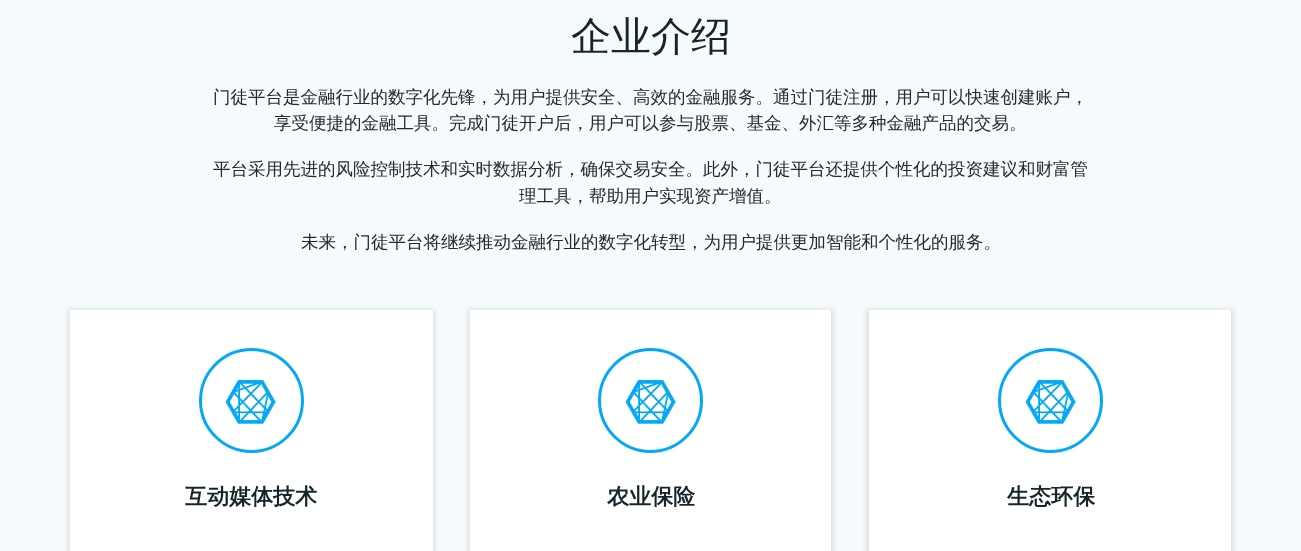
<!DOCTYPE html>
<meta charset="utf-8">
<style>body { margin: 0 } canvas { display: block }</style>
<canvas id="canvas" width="1301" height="551"></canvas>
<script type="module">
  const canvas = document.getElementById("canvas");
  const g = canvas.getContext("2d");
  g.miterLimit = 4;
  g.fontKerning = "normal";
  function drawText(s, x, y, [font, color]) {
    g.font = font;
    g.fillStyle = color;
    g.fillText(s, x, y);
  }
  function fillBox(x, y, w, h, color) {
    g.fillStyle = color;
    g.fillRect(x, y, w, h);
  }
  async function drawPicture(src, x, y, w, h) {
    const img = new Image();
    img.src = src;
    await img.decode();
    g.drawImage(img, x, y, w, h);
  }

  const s1 = ["500 40px WenQuanYi Zen Hei", "#17252A"];
  const s2 = ["500 17.5px WenQuanYi Zen Hei", "#25292A"];
  const s3 = ["bold 22px WenQuanYi Zen Hei", "#17252A"];

  fillBox(0, 0, 1301, 551, "#F5FAFD");
  drawText("企业介绍", 571, 50, s1);
  drawText("门徒平台是金融行业的数字化先锋，为用户提供安全、高效的金融服务。通过门徒注册，用户可以快速创建账户，", 213, 103, s2);
  drawText("享受便捷的金融工具。完成门徒开户后，用户可以参与股票、基金、外汇等多种金融产品的交易。", 274, 129, s2);
  drawText("平台采用先进的风险控制技术和实时数据分析，确保交易安全。此外，门徒平台还提供个性化的投资建议和财富管", 213, 175, s2);
  drawText("理工具，帮助用户实现资产增值。", 519, 202, s2);
  drawText("未来，门徒平台将继续推动金融行业的数字化转型，为用户提供更加智能和个性化的服务。", 301, 248, s2);
  g.fillStyle = "rgba(189, 189, 189, 0.4)";
  g.filter = "blur(2px)";
  g.beginPath();
  g.rect(68, 309, 367, 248);
  g.fill();
  g.filter = "none";
  fillBox(70, 310, 363, 241, "#FFFFFF");
  g.beginPath();
  g.arc(251.5, 400.5, 51, 0, Math.PI * 2);
  g.strokeStyle = "#03A9F4";
  g.lineWidth = 3;
  g.stroke();
  await drawPicture("pic1.png", 225, 380, 51, 44);
  drawText("互动媒体技术", 185, 504, s3);
  g.fillStyle = "rgba(189, 189, 189, 0.4)";
  g.filter = "blur(2px)";
  g.beginPath();
  g.rect(468, 309, 366, 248);
  g.fill();
  g.filter = "none";
  fillBox(470, 310, 361, 241, "#FFFFFF");
  g.beginPath();
  g.arc(650.5, 400.5, 51, 0, Math.PI * 2);
  g.stroke();
  await drawPicture("pic1.png", 625, 380, 51, 44);
  drawText("农业保险", 607, 504, s3);
  g.fillStyle = "rgba(189, 189, 189, 0.4)";
  g.filter = "blur(2px)";
  g.beginPath();
  g.rect(866, 309, 368, 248);
  g.fill();
  g.filter = "none";
  fillBox(869, 310, 362, 241, "#FFFFFF");
  g.beginPath();
  g.arc(1050.5, 400.5, 51, 0, Math.PI * 2);
  g.stroke();
  await drawPicture("pic1.png", 1025, 380, 51, 44);
  drawText("生态环保", 1007, 504, s3);
</script>
